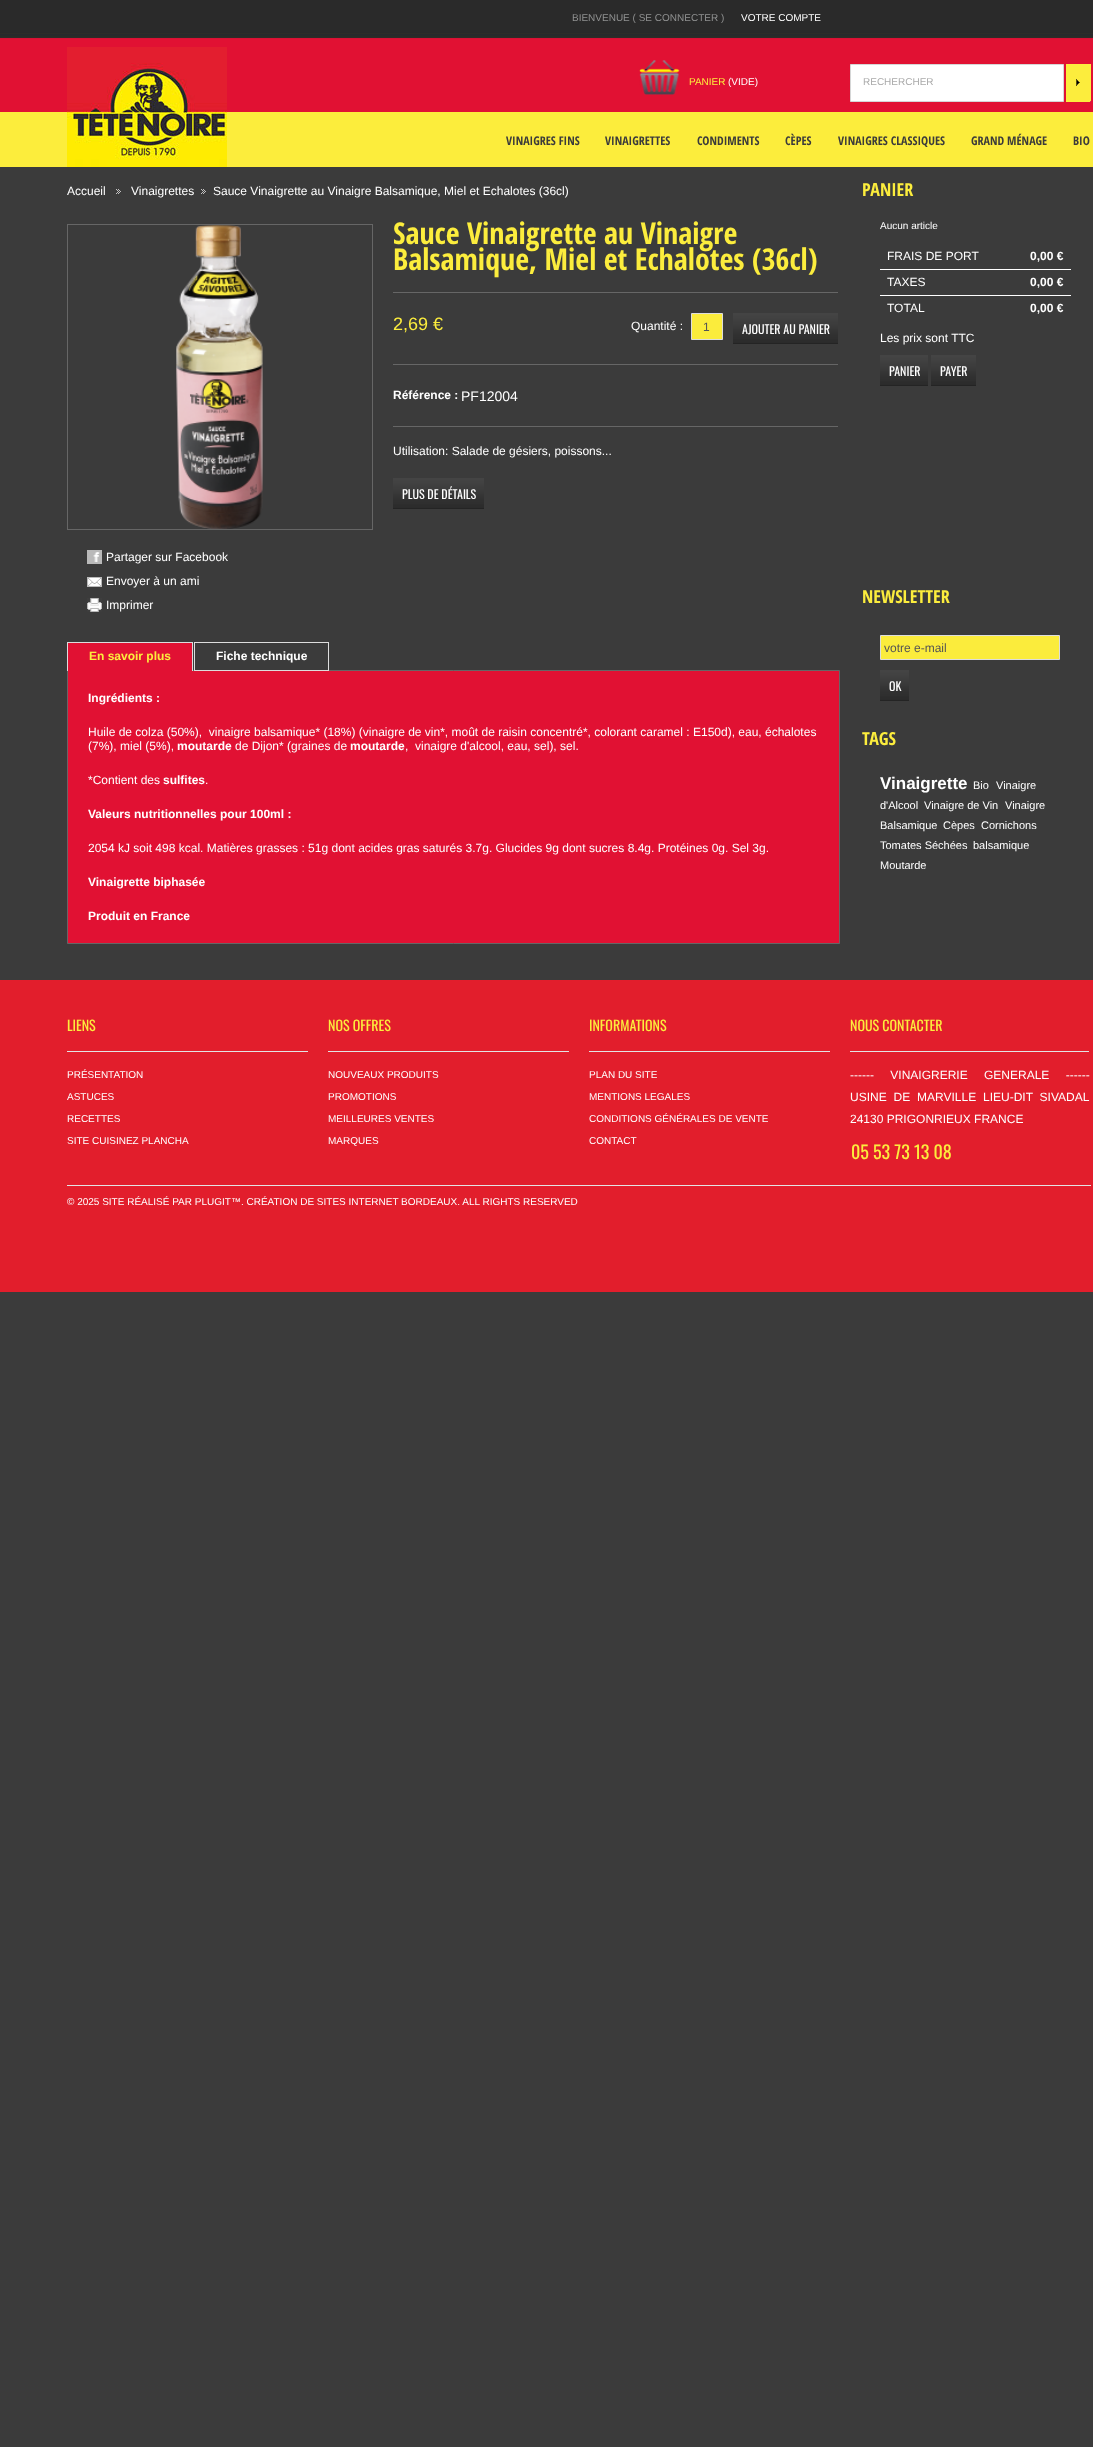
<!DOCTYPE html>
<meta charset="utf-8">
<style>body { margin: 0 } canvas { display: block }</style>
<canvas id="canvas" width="1093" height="2447"></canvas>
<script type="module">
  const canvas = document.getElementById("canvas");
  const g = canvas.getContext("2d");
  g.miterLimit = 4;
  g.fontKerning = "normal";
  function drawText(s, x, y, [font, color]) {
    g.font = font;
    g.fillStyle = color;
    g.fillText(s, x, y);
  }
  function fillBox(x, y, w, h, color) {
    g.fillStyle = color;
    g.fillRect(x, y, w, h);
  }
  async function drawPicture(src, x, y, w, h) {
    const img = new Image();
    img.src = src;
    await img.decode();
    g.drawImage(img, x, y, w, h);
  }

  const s1 = ["10px Liberation Sans", "#909191"];
  const s2 = ["10px Liberation Sans", "#FFFFFF"];
  const s3 = ["10px Liberation Sans", "#FCED3D"];
  const s4 = ["10px Liberation Sans", "#AAAAAA"];
  const s5 = ["bold 12px Open Sans Condensed", "#3B3B3B"];
  const s6 = ["12px Liberation Sans", "#FFFFFF"];
  const s7 = ["bold 30px Open Sans Condensed", "#FCED3D"];
  const s8 = ["18px Liberation Sans", "#FCED3D"];
  const s9 = ["12px Liberation Sans", "#555555"];
  const s10 = ["12px Oswald", "#FFFFFF"];
  const s11 = ["bold 12px Liberation Sans", "#FFFFFF"];
  const s12 = ["14px Liberation Sans", "#FFFFFF"];
  const s13 = ["bold 12px Liberation Sans", "#FCED3D"];
  const s14 = ["bold 18px Open Sans Condensed", "#FCED3D"];
  const s15 = ["bold 17px Liberation Sans", "#FFFFFF"];
  const s16 = ["11px Liberation Sans", "#FFFFFF"];
  const s17 = ["14px Oswald", "#FCED3D"];
  const s18 = ["18px Oswald", "#FCED3D"];

  fillBox(0, 0, 1093, 2447, "#3B3B3B");
  await drawPicture("pic1.png", 0, 0, 1093, 167);
  await drawPicture("pic2.png", 67, 47, 160, 120);
  drawText("BIENVENUE ( SE CONNECTER )", 572, 21, s1);
  drawText("VOTRE COMPTE", 741, 21, s2);
  await drawPicture("pic3.png", 639, 60, 41, 35);
  drawText("PANIER", 689, 85, s3);
  drawText("(VIDE)", 728, 85, s2);
  g.beginPath();
  g.rect(850.5, 64.5, 213, 37);
  g.fill();
  g.strokeStyle = "#D5D6D6";
  g.stroke();
  drawText("RECHERCHER", 863, 85, s4);
  await drawPicture("pic4.png", 1066, 64, 25, 38);
  drawText("VINAIGRES FINS", 506, 145, s5);
  drawText("VINAIGRETTES", 605, 145, s5);
  drawText("CONDIMENTS", 697, 145, s5);
  drawText("CÈPES", 785, 145, s5);
  drawText("VINAIGRES CLASSIQUES", 838, 145, s5);
  drawText("GRAND MÉNAGE", 971, 145, s5);
  drawText("BIO", 1073, 145, s5);
  drawText("Accueil", 67, 195, s6);
  await drawPicture("pic5.png", 116, 189, 5, 5);
  drawText("Vinaigrettes", 131, 195, s6);
  await drawPicture("pic5.png", 201, 189, 5, 5);
  drawText("Sauce Vinaigrette au Vinaigre Balsamique, Miel et Echalotes (36cl)", 213, 195, s6);
  drawText("Sauce Vinaigrette au Vinaigre", 393, 244, s7);
  drawText("Balsamique, Miel et Echalotes (36cl)", 393, 270, s7);
  fillBox(393, 292, 445, 1, "#666666");
  drawText("2,69 €", 393, 330, s8);
  drawText("Quantité :", 631, 330, s6);
  g.fillStyle = "#FBEC3C";
  g.beginPath();
  g.rect(691.5, 313.5, 31, 26);
  g.fill();
  g.strokeStyle = "#DDDDDD";
  g.stroke();
  drawText("1", 703, 331, s9);
  await drawPicture("pic6.png", 733, 313, 105, 31);
  drawText("AJOUTER AU PANIER", 742, 334, s10);
  fillBox(393, 364, 445, 1, "#666666");
  drawText("Référence :", 393, 399, s11);
  drawText("PF12004", 461, 401, s12);
  fillBox(393, 426, 445, 1, "#666666");
  drawText("Utilisation: Salade de gésiers, poissons...", 393, 455, s6);
  await drawPicture("pic7.png", 393, 478, 91, 31);
  drawText("PLUS DE DÉTAILS", 402, 499, s10);
  g.strokeStyle = "#666666";
  g.strokeRect(67.5, 224.5, 305, 305);
  await drawPicture("pic8.png", 176, 225, 87, 304);
  await drawPicture("pic9.png", 87, 550, 15, 14);
  drawText("Partager sur Facebook", 106, 561, s6);
  await drawPicture("pic10.png", 87, 577, 15, 10);
  drawText("Envoyer à un ami", 106, 585, s6);
  await drawPicture("pic11.png", 87, 598, 15, 14);
  drawText("Imprimer", 106, 609, s6);
  g.fillStyle = "#E11133";
  g.beginPath();
  g.rect(67.5, 670.5, 772, 273);
  g.fill();
  g.stroke();
  fillBox(68, 643, 124, 28, "#E11133");
  fillBox(67, 642, 126, 1, "#DDDDDD");
  fillBox(192, 642, 1, 29, "#DDDDDD");
  fillBox(67, 642, 1, 29, "#DDDDDD");
  drawText("En savoir plus", 89, 660, s13);
  g.strokeStyle = "#DDDDDD";
  g.strokeRect(194.5, 642.5, 134, 28);
  drawText("Fiche technique", 216, 660, s11);
  drawText("Ingrédients :", 88, 702, s11);
  drawText("Huile de colza (50%),  vinaigre balsamique* (18%) (vinaigre de vin*, moût de raisin concentré*, colorant caramel : E150d), eau, échalotes", 88, 736, s6);
  drawText("(7%), miel (5%),", 88, 750, s6);
  drawText("moutarde", 177, 750, s11);
  drawText("de Dijon* (graines de", 235, 750, s6);
  drawText("moutarde", 350, 750, s11);
  drawText(",  vinaigre d'alcool, eau, sel), sel.", 405, 750, s6);
  drawText("*Contient des", 88, 784, s6);
  drawText("sulfites", 163, 784, s11);
  drawText(".", 205, 784, s6);
  drawText("Valeurs nutritionnelles pour 100ml :", 88, 818, s11);
  drawText("2054 kJ soit 498 kcal. Matières grasses : 51g dont acides gras saturés 3.7g. Glucides 9g dont sucres 8.4g. Protéines 0g. Sel 3g.", 88, 852, s6);
  drawText("Vinaigrette biphasée", 88, 886, s11);
  drawText("Produit en France", 88, 920, s11);
  drawText("PANIER", 862, 196, s14);
  drawText("Aucun article", 880, 229, s2);
  drawText("FRAIS DE PORT", 887, 260, s6);
  drawText("0,00 €", 1030, 260, s11);
  fillBox(880, 269, 191, 1, "#FFFFFF");
  drawText("TAXES", 887, 286, s6);
  drawText("0,00 €", 1030, 286, s11);
  fillBox(880, 295, 191, 1, "#FFFFFF");
  drawText("TOTAL", 887, 312, s6);
  drawText("0,00 €", 1030, 312, s11);
  drawText("Les prix sont TTC", 880, 342, s6);
  await drawPicture("pic12.png", 880, 355, 48, 31);
  drawText("PANIER", 889, 376, s10);
  await drawPicture("pic13.png", 931, 355, 45, 31);
  drawText("PAYER", 940, 376, s10);
  drawText("NEWSLETTER", 862, 603, s14);
  g.fillStyle = "#FBEC3C";
  g.beginPath();
  g.rect(880.5, 635.5, 179, 24);
  g.fill();
  g.stroke();
  drawText("votre e-mail", 884, 652, s9);
  await drawPicture("pic14.png", 880, 670, 29, 31);
  drawText("OK", 889, 691, s10);
  drawText("TAGS", 862, 745, s14);
  drawText("Vinaigrette", 880, 789, s15);
  drawText("Bio", 973, 789, s16);
  drawText("Vinaigre", 996, 789, s16);
  drawText("d'Alcool", 880, 809, s16);
  drawText("Vinaigre de Vin", 924, 809, s16);
  drawText("Vinaigre", 1005, 809, s16);
  drawText("Balsamique", 880, 829, s16);
  drawText("Cèpes", 943, 829, s16);
  drawText("Cornichons", 981, 829, s16);
  drawText("Tomates Séchées", 880, 849, s16);
  drawText("balsamique", 973, 849, s16);
  drawText("Moutarde", 880, 869, s16);
  fillBox(0, 980, 1093, 312, "#E21E2C");
  fillBox(67, 1051, 241, 1, "#E4E4E4");
  drawText("LIENS", 67, 1031, s17);
  drawText("PRÉSENTATION", 67, 1078, s2);
  drawText("ASTUCES", 67, 1100, s2);
  drawText("RECETTES", 67, 1122, s2);
  drawText("SITE CUISINEZ PLANCHA", 67, 1144, s2);
  fillBox(328, 1051, 241, 1, "#E4E4E4");
  drawText("NOS OFFRES", 328, 1031, s17);
  drawText("NOUVEAUX PRODUITS", 328, 1078, s2);
  drawText("PROMOTIONS", 328, 1100, s2);
  drawText("MEILLEURES VENTES", 328, 1122, s2);
  drawText("MARQUES", 328, 1144, s2);
  fillBox(589, 1051, 241, 1, "#E4E4E4");
  drawText("INFORMATIONS", 589, 1031, s17);
  drawText("PLAN DU SITE", 589, 1078, s2);
  drawText("MENTIONS LEGALES", 589, 1100, s2);
  drawText("CONDITIONS GÉNÉRALES DE VENTE", 589, 1122, s2);
  drawText("CONTACT", 589, 1144, s2);
  fillBox(67, 1185, 1024, 1, "#E4E4E4");
  drawText("© 2025 SITE RÉALISÉ PAR PLUGIT™. CRÉATION DE SITES INTERNET BORDEAUX. ALL RIGHTS RESERVED", 67, 1205, s2);
  fillBox(850, 1051, 239, 1, "#E4E4E4");
  drawText("NOUS CONTACTER", 850, 1031, s17);
  g.wordSpacing = "13px";
  drawText("------ VINAIGRERIE GENERALE ------", 850, 1079, s6);
  g.wordSpacing = "3.5px";
  drawText("USINE DE MARVILLE LIEU-DIT SIVADAL", 850, 1101, s6);
  g.wordSpacing = "0px";
  drawText("24130 PRIGONRIEUX FRANCE", 850, 1123, s6);
  drawText("05 53 73 13 08", 851, 1159, s18);
</script>
